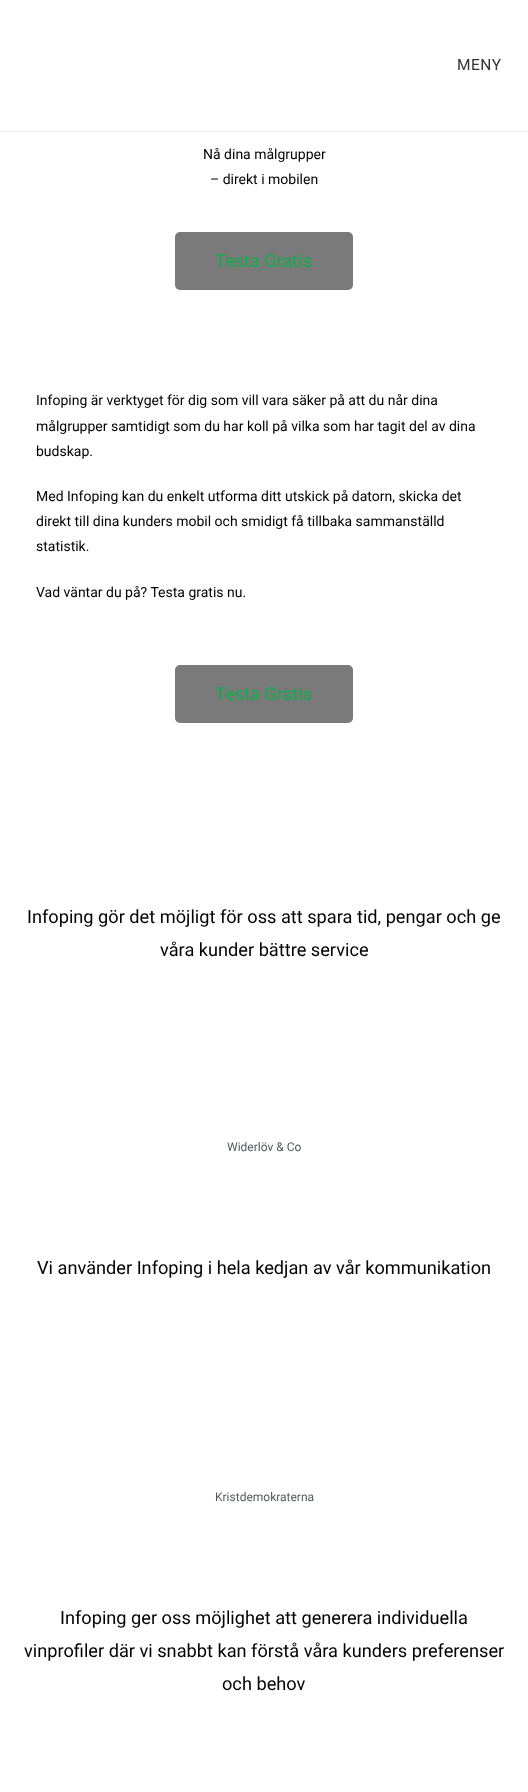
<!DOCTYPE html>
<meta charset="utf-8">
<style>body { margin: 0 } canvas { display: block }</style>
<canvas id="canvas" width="528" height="1792"></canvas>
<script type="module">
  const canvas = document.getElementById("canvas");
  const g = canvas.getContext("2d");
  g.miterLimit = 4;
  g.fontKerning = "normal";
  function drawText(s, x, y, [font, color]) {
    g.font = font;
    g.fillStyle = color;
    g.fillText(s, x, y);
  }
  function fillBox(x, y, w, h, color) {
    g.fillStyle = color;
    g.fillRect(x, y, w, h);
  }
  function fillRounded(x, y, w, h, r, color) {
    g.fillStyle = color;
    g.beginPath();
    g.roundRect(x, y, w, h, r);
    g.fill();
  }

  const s1 = ["15.5px Roboto", "#323232"];
  const s2 = ["14px Roboto", "#000000"];
  const s3 = ["500 18px Roboto", "#23A455"];
  const s4 = ["18.2px Roboto", "#000000"];
  const s5 = ["12px Roboto", "#54595F"];

  fillBox(0, 0, 528, 1792, "#FFFFFF");
  fillBox(0, 131, 528, 1, "#F1F1F1");
  g.letterSpacing = "0.5px";
  drawText("MENY", 457, 70, s1);
  g.letterSpacing = "0px";
  drawText("Nå dina målgrupper", 203, 159, s2);
  drawText("– direkt i mobilen", 210, 184, s2);
  fillRounded(175, 232, 178, 58, 5, "#7A7A7A");
  drawText("Testa Gratis", 215, 267, s3);
  drawText("Infoping är verktyget för dig som vill vara säker på att du når dina", 36, 405, s2);
  drawText("målgrupper samtidigt som du har koll på vilka som har tagit del av dina", 36, 431, s2);
  drawText("budskap.", 36, 456, s2);
  drawText("Med Infoping kan du enkelt utforma ditt utskick på datorn, skicka det", 36, 501, s2);
  drawText("direkt till dina kunders mobil och smidigt få tillbaka sammanställd", 36, 526, s2);
  drawText("statistik.", 36, 551, s2);
  drawText("Vad väntar du på? Testa gratis nu.", 36, 597, s2);
  fillRounded(175, 665, 178, 58, 5, "#7A7A7A");
  drawText("Testa Gratis", 215, 700, s3);
  drawText("Infoping gör det möjligt för oss att spara tid, pengar och ge", 27, 923, s4);
  drawText("våra kunder bättre service", 160, 956, s4);
  drawText("Widerlöv & Co", 227, 1151, s5);
  drawText("Vi använder Infoping i hela kedjan av vår kommunikation", 37, 1274, s4);
  drawText("Kristdemokraterna", 215, 1501, s5);
  drawText("Infoping ger oss möjlighet att generera individuella", 60, 1624, s4);
  drawText("vinprofiler där vi snabbt kan förstå våra kunders preferenser", 24, 1657, s4);
  drawText("och behov", 222, 1690, s4);
</script>
